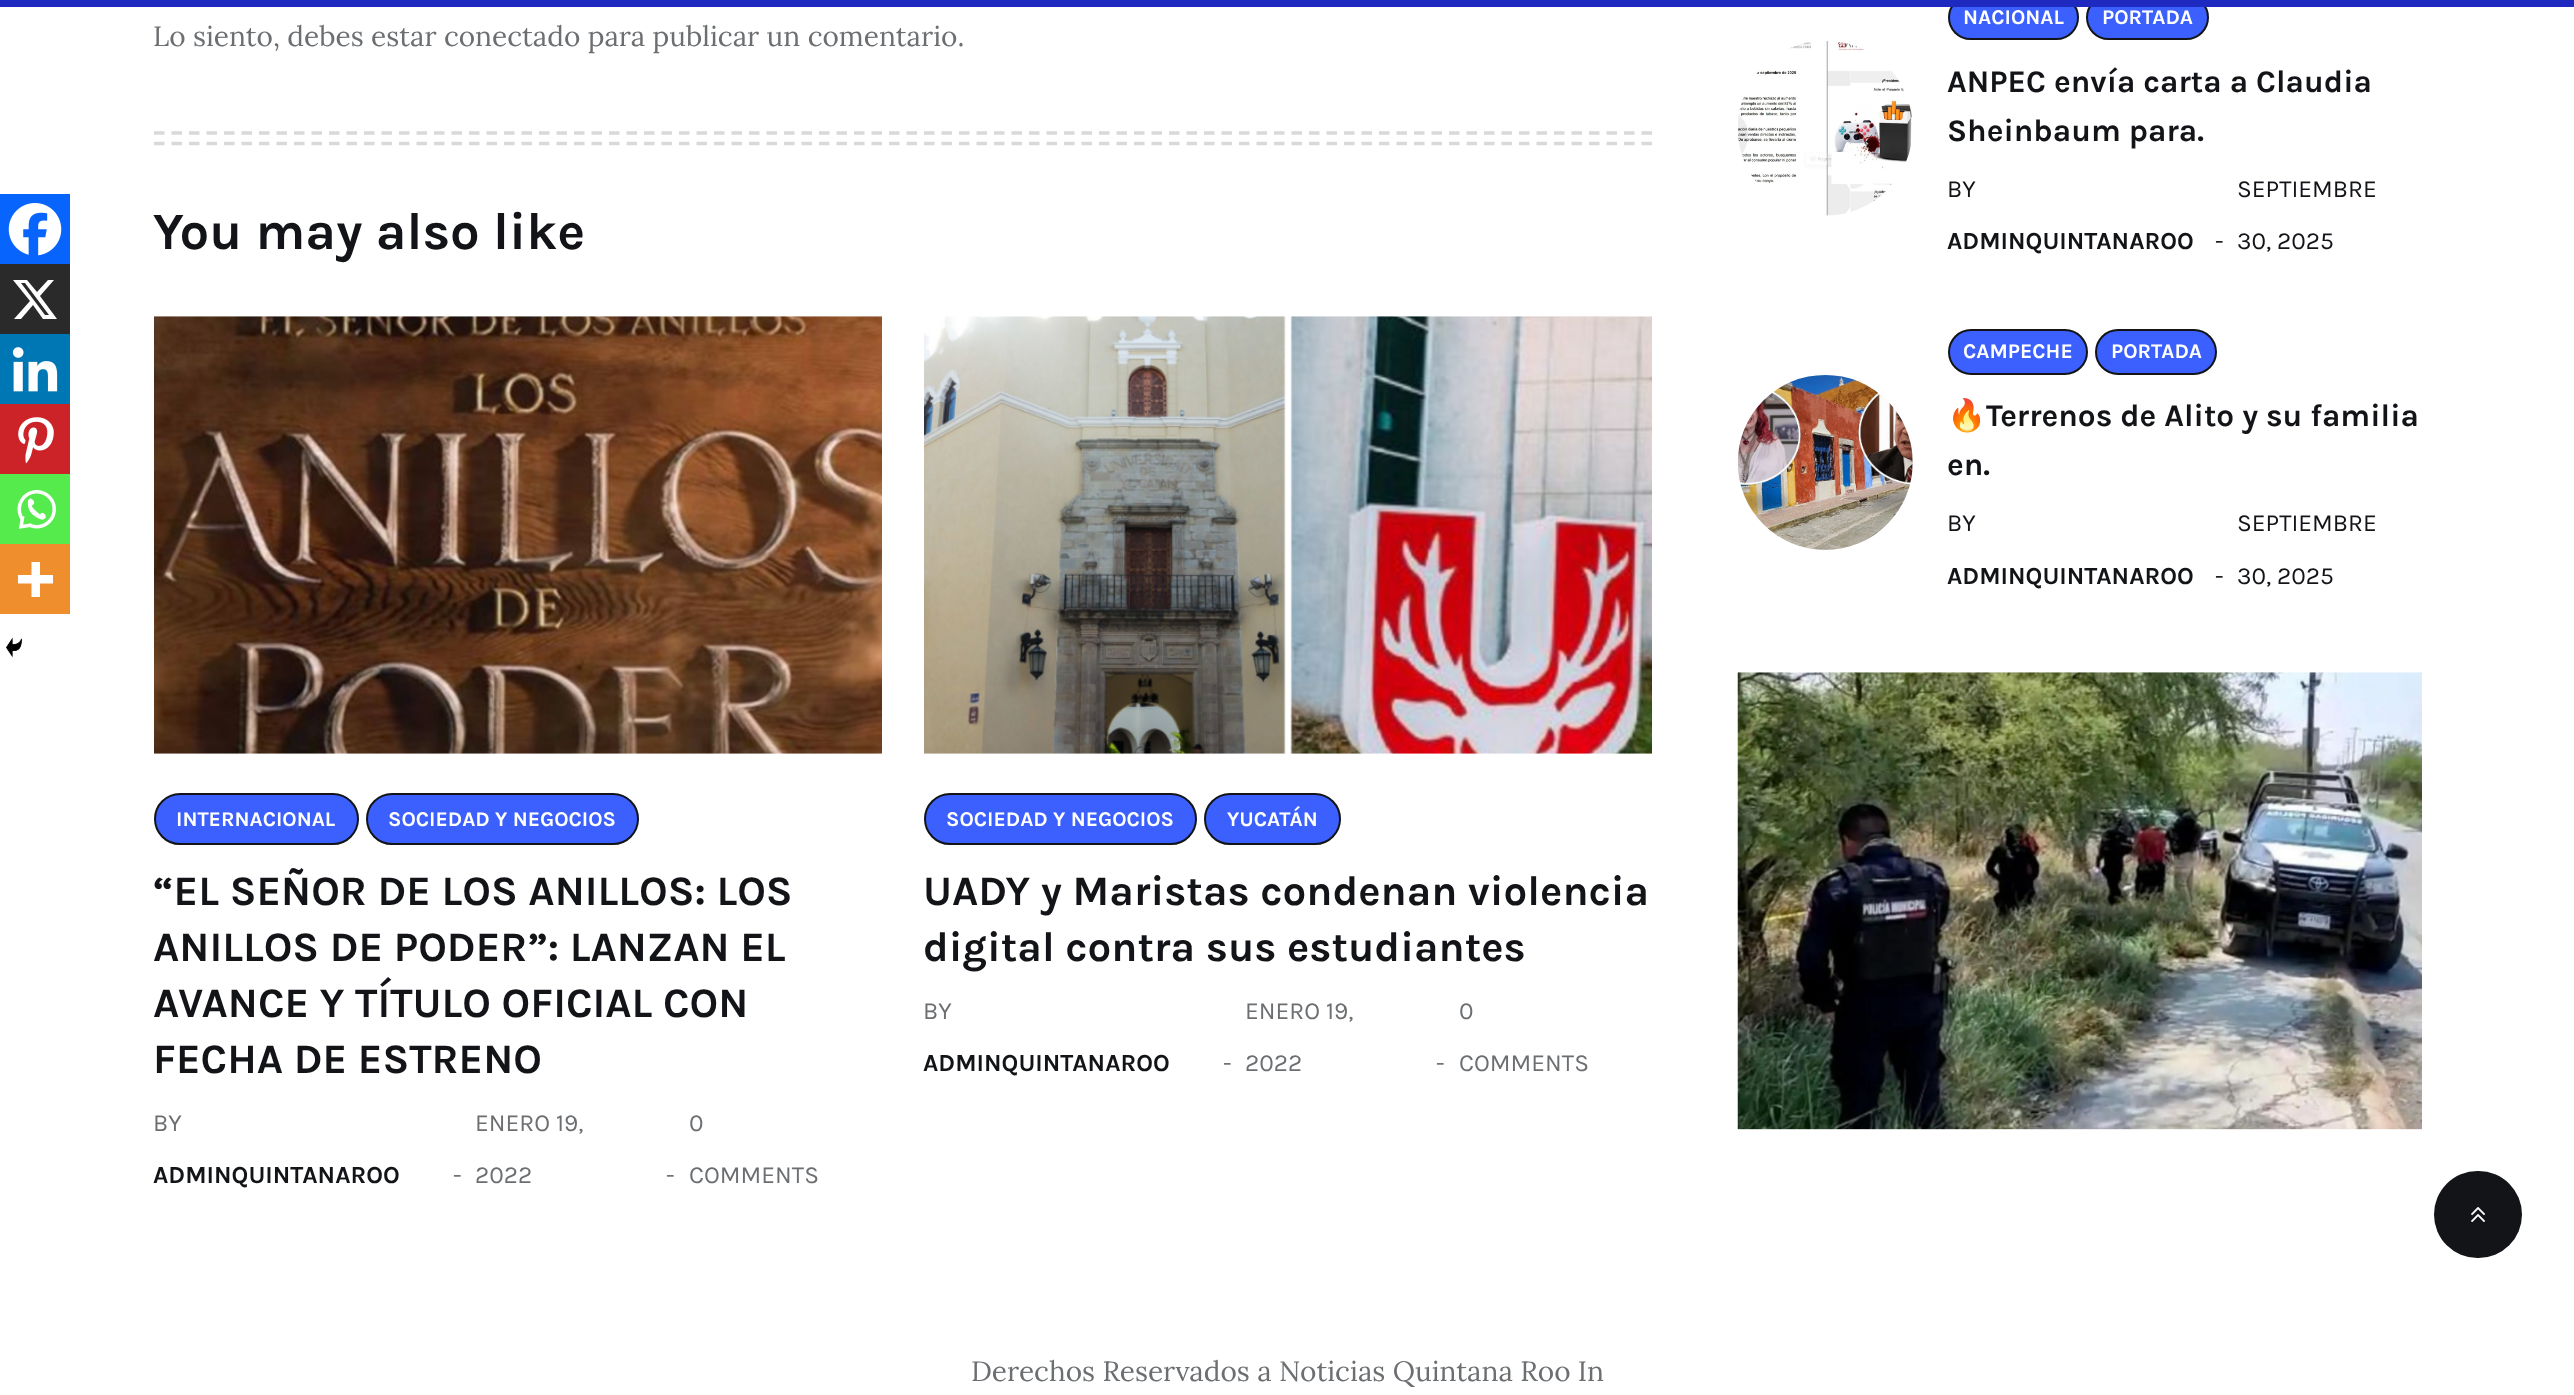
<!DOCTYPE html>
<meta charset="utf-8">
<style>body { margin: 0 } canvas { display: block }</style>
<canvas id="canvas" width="2574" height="1395"></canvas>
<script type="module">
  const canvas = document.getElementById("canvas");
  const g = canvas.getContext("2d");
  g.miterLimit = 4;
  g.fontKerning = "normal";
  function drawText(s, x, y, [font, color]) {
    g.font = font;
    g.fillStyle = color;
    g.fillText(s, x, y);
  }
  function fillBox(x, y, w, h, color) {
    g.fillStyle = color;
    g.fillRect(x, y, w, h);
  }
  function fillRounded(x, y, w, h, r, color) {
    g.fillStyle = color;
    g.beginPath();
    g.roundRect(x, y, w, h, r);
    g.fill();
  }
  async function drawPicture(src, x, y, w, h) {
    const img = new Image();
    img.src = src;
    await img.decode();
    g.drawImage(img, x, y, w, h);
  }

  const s1 = ["28px Lora", "#6C6F72"];
  const s2 = ["bold 52.5px Karla", "#121418"];
  const s3 = ["bold 21px Karla", "#FFFFFF"];
  const s4 = ["bold 42px Karla", "#121418"];
  const s5 = ["24.5px Karla", "#6C6F72"];
  const s6 = ["bold 24.5px Karla", "#121418"];
  const s7 = ["bold 31.5px Karla", "#121418"];
  const s8 = ["24.5px Karla", "#121418"];
  const s9 = ["bold 31.5px Noto Color Emoji", "#121418"];

  fillBox(0, 0, 2574, 1395, "#FFFFFF");
  g.fillStyle = "#3B60FE";
  g.beginPath();
  g.roundRect(1949, -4, 129, 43, 21.5);
  g.fill();
  g.strokeStyle = "#121418";
  g.lineWidth = 2;
  g.stroke();
  g.beginPath();
  g.roundRect(2087, -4, 121, 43, 21.5);
  g.fill();
  g.stroke();
  fillBox(0, 0, 2574, 7, "#1E29BF");
  drawText("Lo siento, debes estar conectado para publicar un comentario.", 153, 46, s1);
  fillBox(0, 194, 70, 70, "#0765FE");
  await drawPicture("pic1.png", 8, 203, 54, 53);
  fillBox(0, 264, 70, 70, "#2A2A2A");
  g.fillStyle = "#FFFFFF";
  g.beginPath();
  g.moveTo(48, 280);
  g.lineTo(54, 280);
  g.lineTo(40, 296);
  g.lineTo(57, 319);
  g.lineTo(43, 319);
  g.lineTo(33, 305);
  g.lineTo(21, 319);
  g.lineTo(14, 319);
  g.lineTo(30, 301);
  g.lineTo(13, 280);
  g.lineTo(27, 280);
  g.lineTo(37, 292);
  g.closePath();
  g.moveTo(45, 315);
  g.lineTo(49, 315);
  g.lineTo(25, 283);
  g.lineTo(21, 283);
  g.closePath();
  g.fill();
  fillBox(0, 334, 70, 70, "#0077B5");
  await drawPicture("pic2.png", 12, 347, 46, 45);
  fillBox(0, 404, 70, 70, "#CC2329");
  await drawPicture("pic3.png", 18, 417, 36, 47);
  fillBox(0, 474, 70, 70, "#55EB4C");
  await drawPicture("pic4.png", 17, 490, 39, 39);
  fillBox(0, 544, 70, 70, "#EE8E2D");
  g.fillStyle = "#FFFFFF";
  g.beginPath();
  g.moveTo(40, 575);
  g.lineTo(40, 562);
  g.lineTo(31.5, 562);
  g.lineTo(31.5, 575);
  g.lineTo(18, 575);
  g.lineTo(18, 583.5);
  g.lineTo(31.5, 583.5);
  g.lineTo(31.5, 597);
  g.lineTo(40, 597);
  g.lineTo(40, 583.5);
  g.lineTo(53, 583.5);
  g.lineTo(53, 575);
  g.closePath();
  g.fill("evenodd");
  await drawPicture("pic5.png", 6, 637, 16, 21);
  g.beginPath();
  g.moveTo(154, 133);
  g.lineTo(1652, 133);
  g.strokeStyle = "#D9D9D9";
  g.lineWidth = 3.5;
  g.setLineDash([10.5, 7]);
  g.stroke();
  g.beginPath();
  g.moveTo(154, 143.5);
  g.lineTo(1652, 143.5);
  g.stroke();
  drawText("You may also like", 153, 249, s2);
  await drawPicture("pic6.png", 154, 316, 728, 438);
  g.fillStyle = "#3B60FE";
  g.beginPath();
  g.roundRect(155, 794, 203, 50, 25);
  g.fill();
  g.strokeStyle = "#121418";
  g.lineWidth = 2;
  g.setLineDash([]);
  g.stroke();
  drawText("INTERNACIONAL", 176, 826, s3);
  g.fillStyle = "#3B60FE";
  g.beginPath();
  g.roundRect(367, 794, 271, 50, 25);
  g.fill();
  g.stroke();
  drawText("SOCIEDAD Y NEGOCIOS", 388, 826, s3);
  drawText("“EL SEÑOR DE LOS ANILLOS: LOS", 153, 905, s4);
  drawText("ANILLOS DE PODER”: LANZAN EL", 153, 961, s4);
  drawText("AVANCE Y TÍTULO OFICIAL CON", 153, 1017, s4);
  drawText("FECHA DE ESTRENO", 153, 1073, s4);
  drawText("BY", 153, 1131, s5);
  drawText("ADMINQUINTANAROO", 153, 1183, s6);
  drawText("-", 453, 1183, s5);
  drawText("ENERO 19,", 475, 1131, s5);
  drawText("2022", 475, 1183, s5);
  drawText("-", 666, 1183, s5);
  drawText("0", 689, 1131, s5);
  drawText("COMMENTS", 689, 1183, s5);
  await drawPicture("pic7.png", 924, 316, 728, 438);
  g.fillStyle = "#3B60FE";
  g.beginPath();
  g.roundRect(925, 794, 271, 50, 25);
  g.fill();
  g.stroke();
  drawText("SOCIEDAD Y NEGOCIOS", 946, 826, s3);
  g.fillStyle = "#3B60FE";
  g.beginPath();
  g.roundRect(1205, 794, 135, 50, 25);
  g.fill();
  g.stroke();
  drawText("YUCATÁN", 1227, 826, s3);
  drawText("UADY y Maristas condenan violencia", 923, 905, s4);
  drawText("digital contra sus estudiantes", 923, 961, s4);
  drawText("BY", 923, 1019, s5);
  drawText("ADMINQUINTANAROO", 923, 1071, s6);
  drawText("-", 1223, 1071, s5);
  drawText("ENERO 19,", 1245, 1019, s5);
  drawText("2022", 1245, 1071, s5);
  drawText("-", 1436, 1071, s5);
  drawText("0", 1459, 1019, s5);
  drawText("COMMENTS", 1459, 1071, s5);
  await drawPicture("pic8.png", 1737, 41, 175, 175);
  drawText("NACIONAL", 1963, 24, s3);
  drawText("PORTADA", 2102, 24, s3);
  drawText("ANPEC envía carta a Claudia", 1947, 92, s7);
  drawText("Sheinbaum para.", 1947, 141, s7);
  drawText("BY", 1947, 197, s8);
  drawText("ADMINQUINTANAROO", 1947, 249, s6);
  drawText("-", 2215, 249, s8);
  drawText("SEPTIEMBRE", 2237, 197, s8);
  drawText("30, 2025", 2237, 249, s8);
  await drawPicture("pic9.png", 1737, 375, 176, 175);
  g.fillStyle = "#3B60FE";
  g.beginPath();
  g.roundRect(1949, 330, 138, 44, 22);
  g.fill();
  g.stroke();
  drawText("CAMPECHE", 1963, 358, s3);
  g.fillStyle = "#3B60FE";
  g.beginPath();
  g.roundRect(2096, 330, 120, 44, 22);
  g.fill();
  g.stroke();
  drawText("PORTADA", 2111, 358, s3);
  drawText("🔥", 1947, 426, s9);
  drawText("Terrenos de Alito y su familia", 1986, 426, s7);
  drawText("en.", 1947, 475, s7);
  drawText("BY", 1947, 531, s8);
  drawText("ADMINQUINTANAROO", 1947, 584, s6);
  drawText("-", 2215, 584, s8);
  drawText("SEPTIEMBRE", 2237, 531, s8);
  drawText("30, 2025", 2237, 584, s8);
  await drawPicture("pic10.png", 1737, 672, 685, 458);
  fillRounded(2434, 1171, 88, 87, 43.5, "#121418");
  await drawPicture("pic11.png", 2471, 1207, 14, 15);
  drawText("Derechos Reservados a Noticias Quintana Roo In", 971, 1381, s1);
</script>
